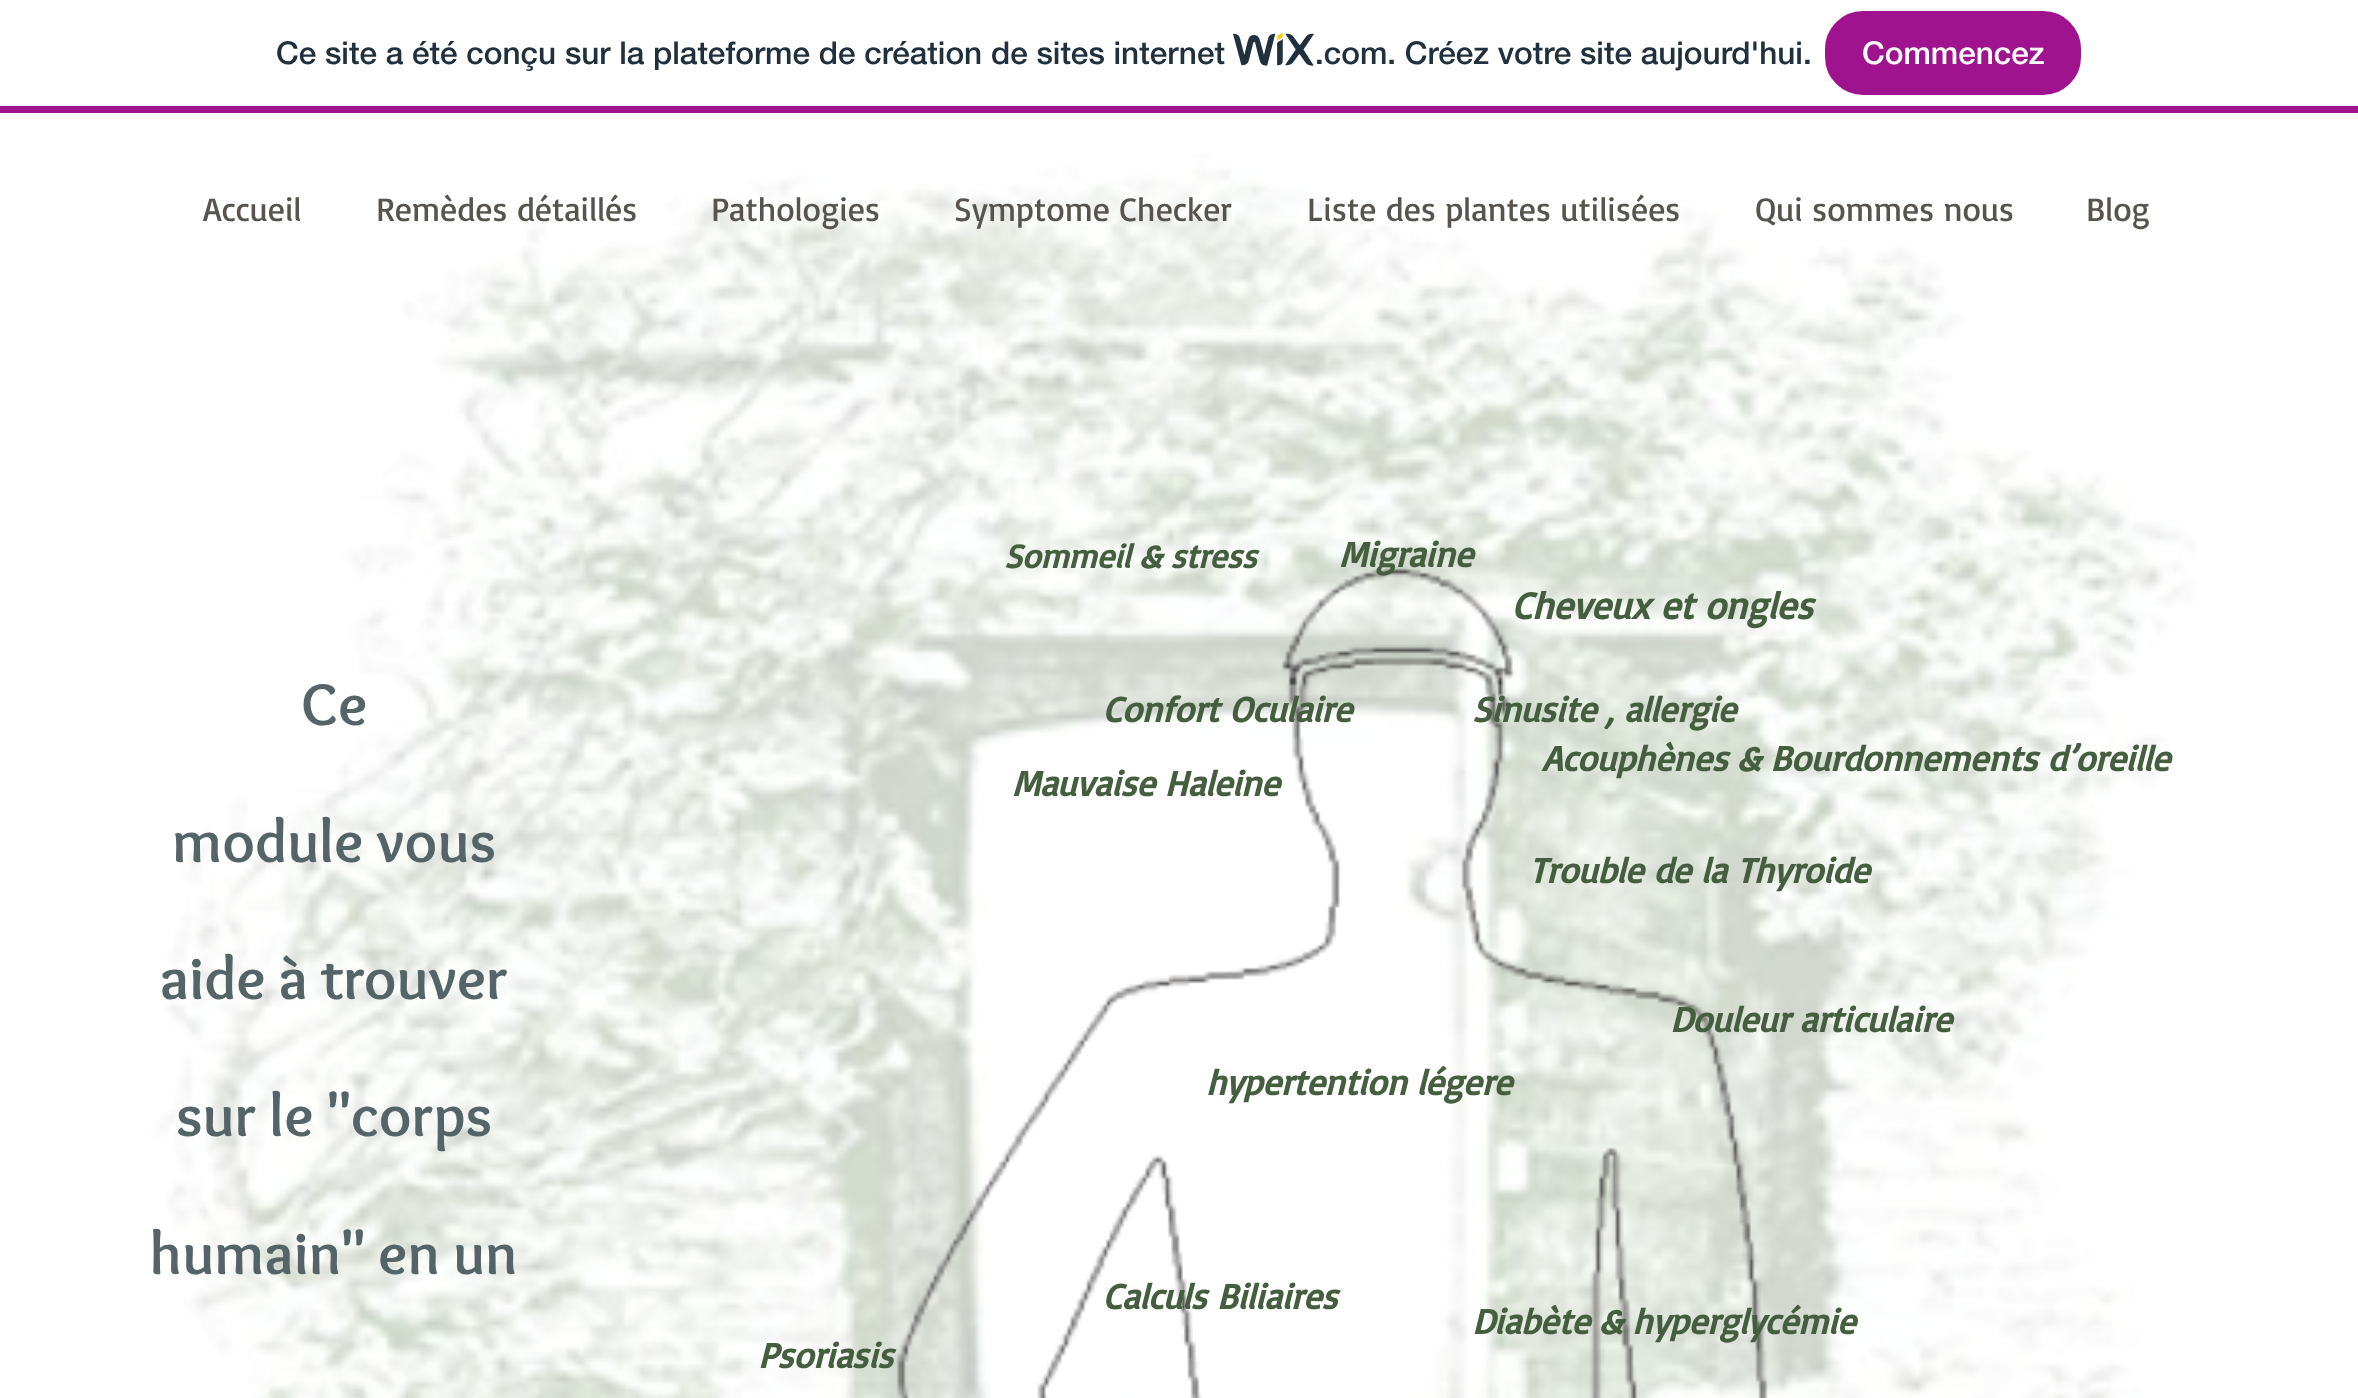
<!DOCTYPE html>
<meta charset="utf-8">
<style>body { margin: 0 } canvas { display: block }</style>
<canvas id="canvas" width="2358" height="1398"></canvas>
<script type="module">
  const canvas = document.getElementById("canvas");
  const g = canvas.getContext("2d");
  g.miterLimit = 4;
  g.fontKerning = "normal";
  function drawText(s, x, y, [font, color]) {
    g.font = font;
    g.fillStyle = color;
    g.fillText(s, x, y);
  }
  function fillBox(x, y, w, h, color) {
    g.fillStyle = color;
    g.fillRect(x, y, w, h);
  }
  async function drawPicture(src, x, y, w, h) {
    const img = new Image();
    img.src = src;
    await img.decode();
    g.drawImage(img, x, y, w, h);
  }

  const s1 = ["500 31.5px 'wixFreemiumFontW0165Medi'", "#20303C"];
  const s2 = ["500 31.5px 'wixFreemiumFontW0165Medi'", "#FFFFFF"];
  const s3 = ["33.75px Basic", "#57534E"];
  const s4 = ["italic bold 33.75px Basic", "#455E3F"];
  const s5 = ["italic bold 36px Basic", "#455E3F"];
  const s6 = ["italic bold 38.25px Basic", "#455E3F"];
  const s7 = ["bold 60.75px Overlock", "#556466"];

  fillBox(0, 0, 2358, 1398, "#FFFFFF");
  fillBox(0, 106, 2358, 7, "#A0138E");
  drawText("Ce site a été conçu sur la plateforme de création de sites internet", 276, 64, s1);
  await drawPicture("pic1.png", 1233, 33, 81, 33);
  drawText(".com. Créez votre site aujourd'hui.", 1315, 64, s1);
  g.fillStyle = "#A0138E";
  g.beginPath();
  g.roundRect(1826, 12, 254, 82, 37);
  g.fill();
  g.strokeStyle = "#A0138E";
  g.lineWidth = 2;
  g.stroke();
  drawText("Commencez", 1862, 64, s2);
  await drawPicture("pic2.png", 151, 153, 2047, 1245);
  drawText("Accueil", 203, 221, s3);
  drawText("Remèdes détaillés", 376, 221, s3);
  drawText("Pathologies", 711, 221, s3);
  drawText("Symptome Checker", 954, 221, s3);
  drawText("Liste des plantes utilisées", 1307, 221, s3);
  drawText("Qui sommes nous", 1755, 221, s3);
  drawText("Blog", 2086, 221, s3);
  await drawPicture("pic3.png", 896, 566, 872, 832);
  drawText("Sommeil & stress", 1004, 568, s4);
  drawText("Migraine", 1339, 567, s5);
  drawText("Cheveux et ongles", 1512, 619, s6);
  drawText("Ce", 301, 725, s7);
  drawText("module vous", 172, 862, s7);
  drawText("aide à trouver", 160, 999, s7);
  drawText("sur le \"corps", 176, 1136, s7);
  drawText("humain\" en un", 150, 1274, s7);
  drawText("Confort Oculaire", 1103, 722, s5);
  drawText("Sinusite , allergie", 1472, 722, s5);
  drawText("Acouphènes & Bourdonnements d’oreille", 1542, 771, s5);
  drawText("Mauvaise Haleine", 1012, 796, s5);
  drawText("Trouble de la Thyroide", 1529, 883, s5);
  drawText("Douleur articulaire", 1670, 1032, s5);
  drawText("hypertention légere", 1206, 1095, s5);
  drawText("Calculs Biliaires", 1103, 1309, s5);
  drawText("Diabète & hyperglycémie", 1472, 1334, s5);
  drawText("Psoriasis", 758, 1368, s5);
</script>
